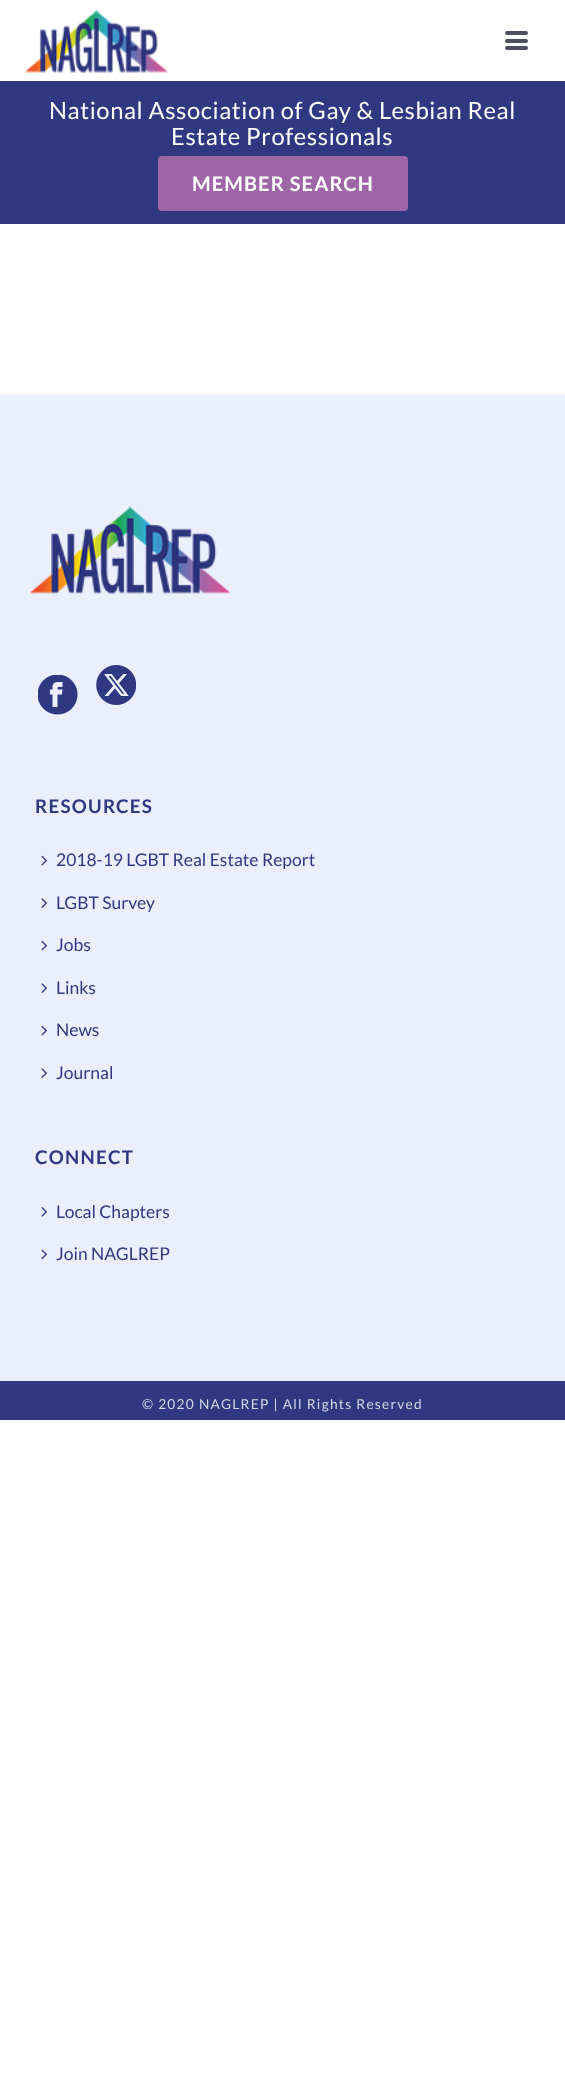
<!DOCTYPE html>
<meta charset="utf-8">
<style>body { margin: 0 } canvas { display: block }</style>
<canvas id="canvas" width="565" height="2073"></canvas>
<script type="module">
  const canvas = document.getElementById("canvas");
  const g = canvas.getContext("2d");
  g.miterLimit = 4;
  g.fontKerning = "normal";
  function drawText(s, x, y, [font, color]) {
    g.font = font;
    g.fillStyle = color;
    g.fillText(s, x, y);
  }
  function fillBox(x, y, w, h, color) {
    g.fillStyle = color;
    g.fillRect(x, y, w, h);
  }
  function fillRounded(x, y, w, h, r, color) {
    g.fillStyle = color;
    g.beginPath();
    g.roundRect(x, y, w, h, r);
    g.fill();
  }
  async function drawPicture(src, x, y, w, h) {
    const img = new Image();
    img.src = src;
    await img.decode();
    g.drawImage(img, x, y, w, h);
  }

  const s1 = ["23.75px Lato", "#FFFFFF"];
  const s2 = ["bold 20px Lato", "#FFFFFF"];
  const s3 = ["bold 18.75px Lato", "#2F3880"];
  const s4 = ["17.5px Lato", "#2F3880"];
  const s5 = ["13.75px Lato", "#D5D7E6"];

  fillBox(0, 0, 565, 2073, "#FFFFFF");
  await drawPicture("pic1.png", 25, 9, 143, 64);
  fillRounded(505, 31, 23, 4, 2, "#4D515F");
  fillRounded(505, 39, 23, 4, 2, "#4D515F");
  fillRounded(505, 46, 23, 4, 2, "#4D515F");
  fillBox(0, 81, 565, 143, "#2F3880");
  g.letterSpacing = "0.6px";
  drawText("National Association of Gay & Lesbian Real", 49, 119, s1);
  drawText("Estate Professionals", 171, 145, s1);
  fillRounded(158, 156, 250, 55, 4, "#9E65A7");
  g.letterSpacing = "1.1px";
  drawText("MEMBER SEARCH", 192, 191, s2);
  fillBox(0, 394, 565, 987, "#EBEFFC");
  await drawPicture("pic2.png", 30, 506, 200, 88);
  await drawPicture("pic3.png", 38, 675, 40, 40);
  await drawPicture("pic4.png", 96, 665, 40, 40);
  g.letterSpacing = "1.25px";
  drawText("RESOURCES", 35, 813, s3);
  await drawPicture("pic5.png", 41, 855, 6, 11);
  g.letterSpacing = "0px";
  drawText("2018-19 LGBT Real Estate Report", 56, 866, s4);
  await drawPicture("pic6.png", 41, 898, 6, 10);
  drawText("LGBT Survey", 56, 909, s4);
  await drawPicture("pic5.png", 41, 940, 6, 11);
  drawText("Jobs", 56, 951, s4);
  await drawPicture("pic6.png", 41, 983, 6, 10);
  drawText("Links", 56, 994, s4);
  await drawPicture("pic5.png", 41, 1025, 6, 11);
  drawText("News", 56, 1036, s4);
  await drawPicture("pic6.png", 41, 1068, 6, 10);
  drawText("Journal", 56, 1079, s4);
  g.letterSpacing = "1.25px";
  drawText("CONNECT", 35, 1164, s3);
  await drawPicture("pic7.png", 41, 1207, 6, 10);
  g.letterSpacing = "0px";
  drawText("Local Chapters", 56, 1218, s4);
  await drawPicture("pic8.png", 41, 1249, 6, 11);
  drawText("Join NAGLREP", 56, 1260, s4);
  fillBox(0, 1381, 565, 39, "#2F3880");
  g.letterSpacing = "1.25px";
  drawText("© 2020 NAGLREP | All Rights Reserved", 142, 1409, s5);
</script>
